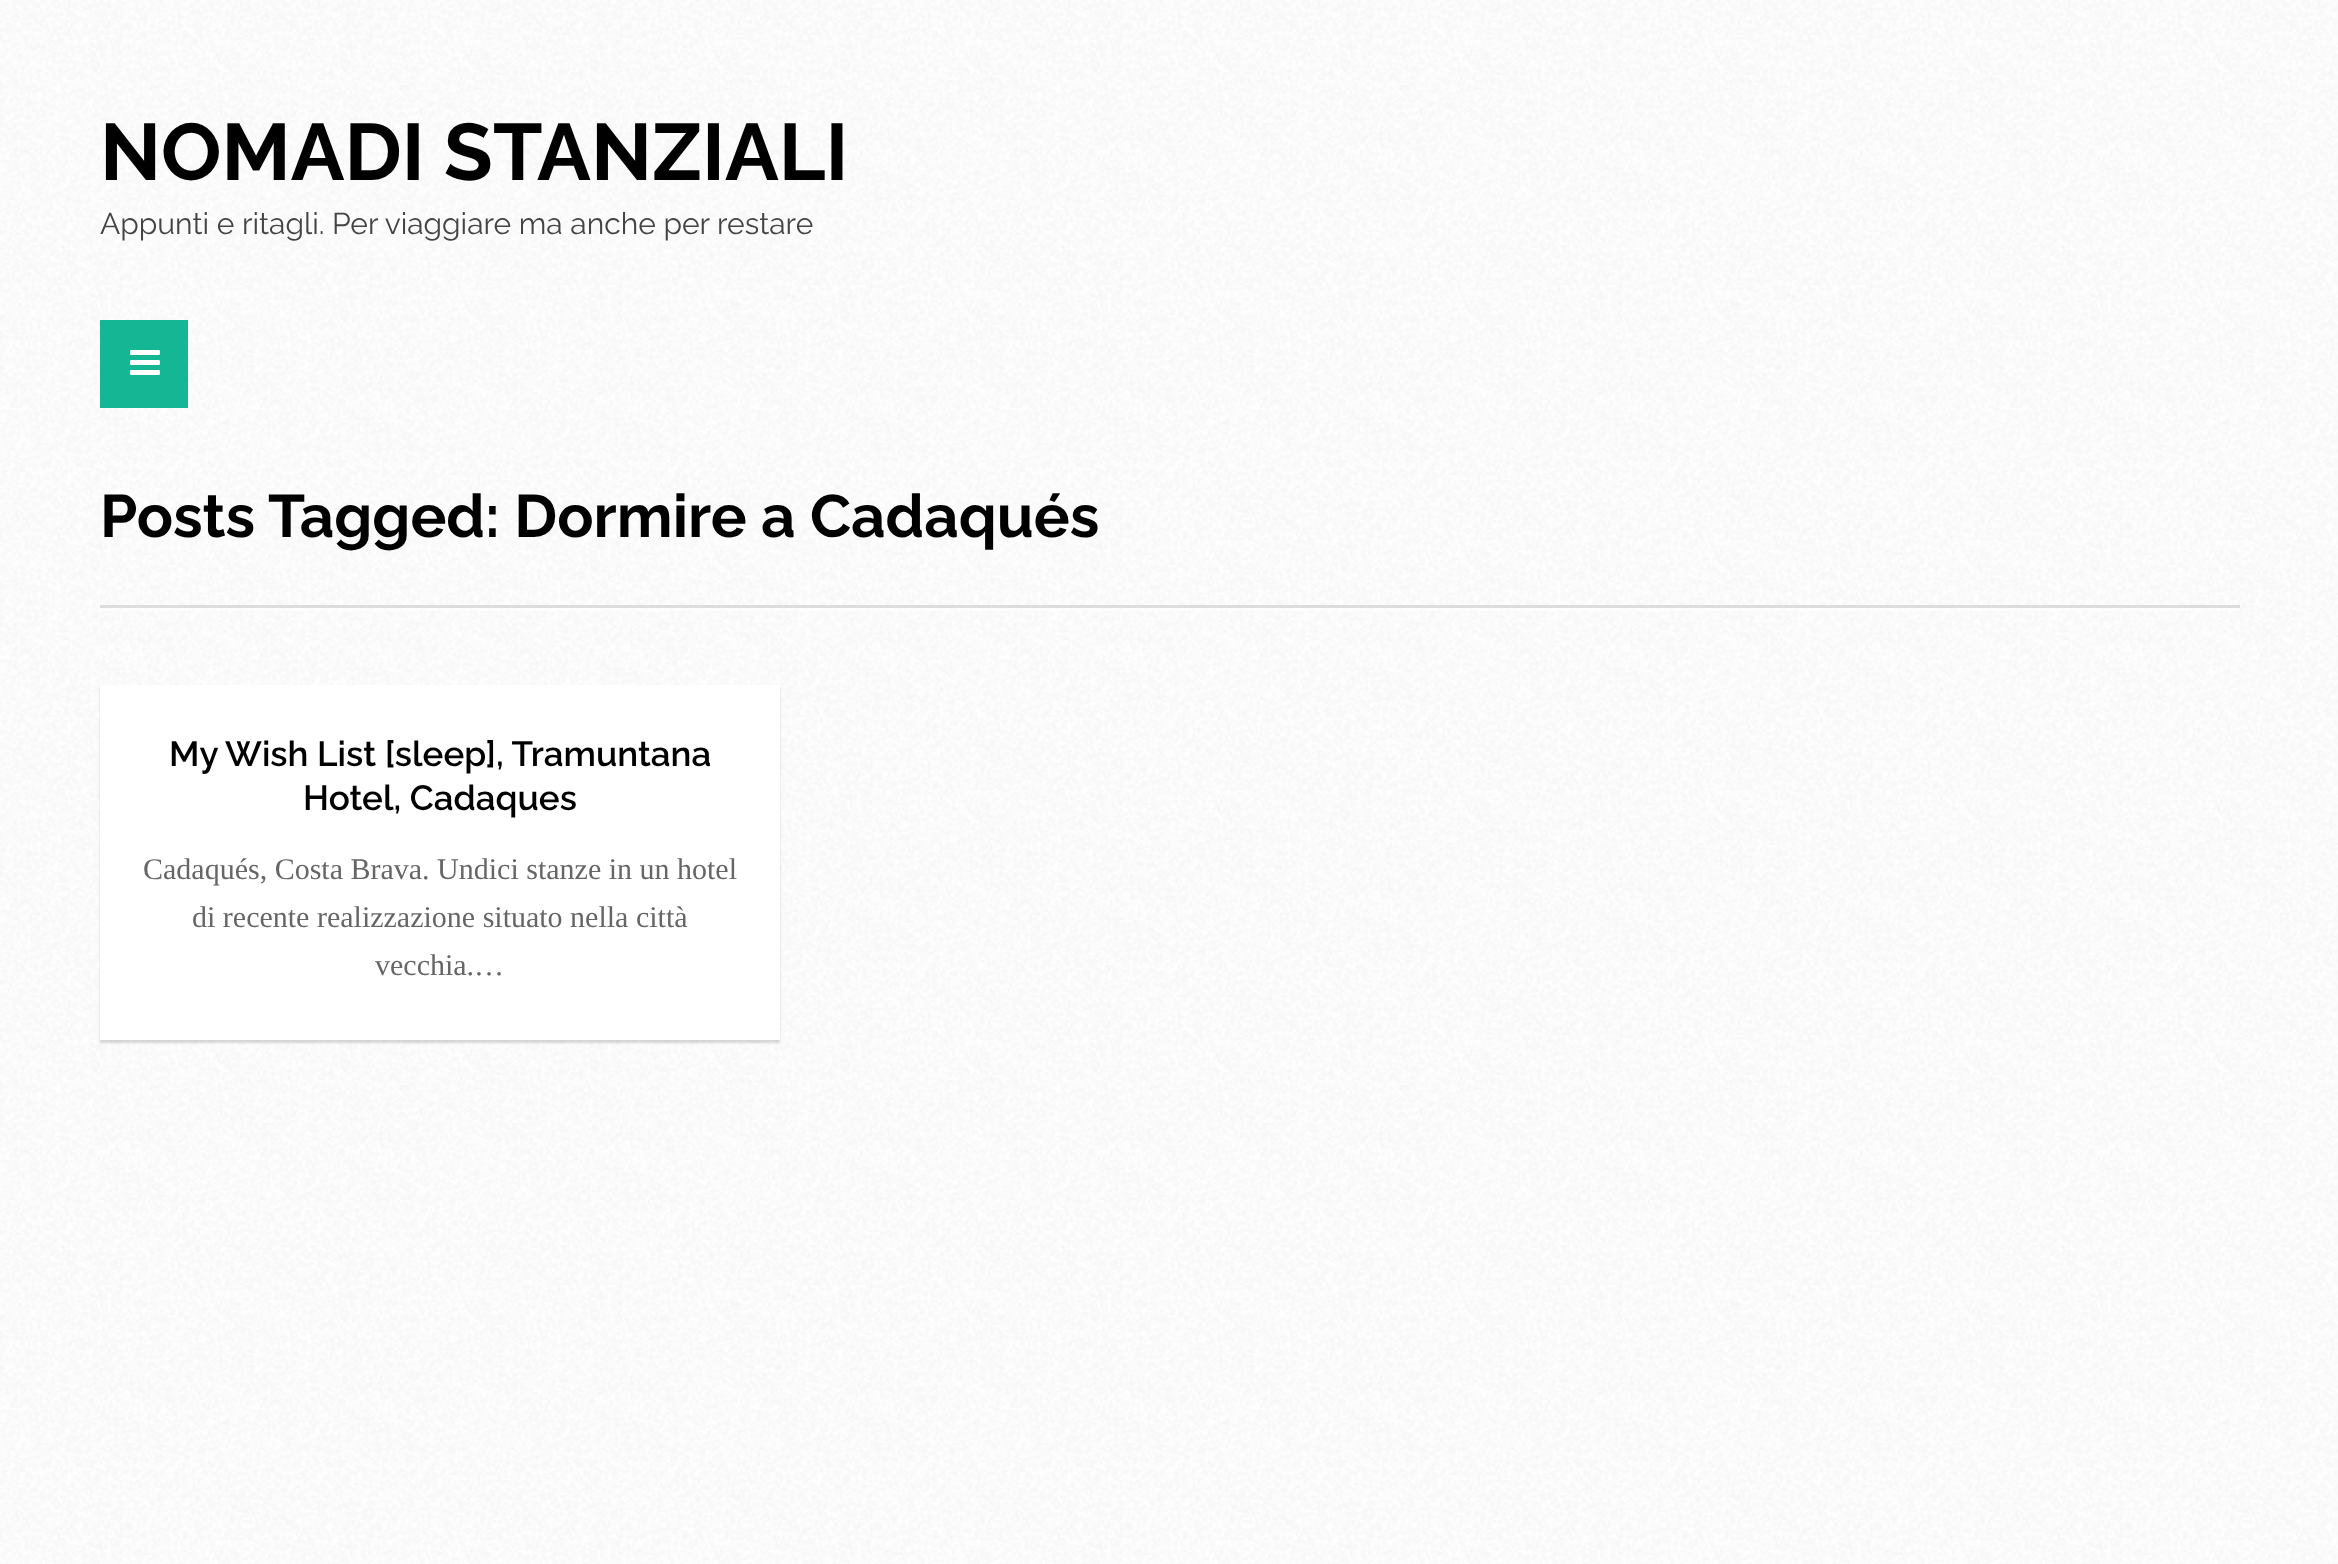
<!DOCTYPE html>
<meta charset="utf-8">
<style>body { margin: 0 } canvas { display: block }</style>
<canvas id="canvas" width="2338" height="1564"></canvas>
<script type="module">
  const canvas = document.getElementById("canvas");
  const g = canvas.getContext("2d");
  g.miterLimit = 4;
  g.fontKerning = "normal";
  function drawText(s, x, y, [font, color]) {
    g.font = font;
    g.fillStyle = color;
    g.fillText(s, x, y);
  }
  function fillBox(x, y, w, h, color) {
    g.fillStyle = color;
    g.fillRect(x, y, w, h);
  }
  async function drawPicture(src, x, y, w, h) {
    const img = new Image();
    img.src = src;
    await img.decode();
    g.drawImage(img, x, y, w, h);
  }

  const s1 = ["bold 80px Raleway", "#000000"];
  const s2 = ["30px Raleway", "#444444"];
  const s3 = ["bold 60px Raleway", "#000000"];
  const s4 = ["600 35px Raleway", "#000000"];
  const s5 = ["30px Liberation Serif", "#666666"];

  fillBox(0, 0, 2338, 1564, "#FFFFFF");
  await drawPicture("pic1.png", 0, 0, 2338, 1564);
  drawText("NOMADI STANZIALI", 100, 180, s1);
  drawText("Appunti e ritagli. Per viaggiare ma anche per restare", 100, 234, s2);
  fillBox(100, 320, 88, 88, "#14B694");
  await drawPicture("pic2.png", 130, 350, 30, 25);
  fillBox(100, 608, 2140, 3, "rgba(255, 255, 255, 0.6)");
  drawText("Posts Tagged: Dormire a Cadaqués", 100, 537, s3);
  fillBox(100, 605, 2140, 3, "#DDDDDD");
  g.fillStyle = "rgba(0, 0, 0, 0.15)";
  g.filter = "blur(1px)";
  g.beginPath();
  g.rect(100, 688, 680, 355);
  g.fill();
  g.filter = "none";
  fillBox(100, 685, 680, 355, "#FFFFFF");
  drawText("My Wish List [sleep], Tramuntana", 169, 766, s4);
  drawText("Hotel, Cadaques", 303, 810, s4);
  drawText("Cadaqués, Costa Brava. Undici stanze in un hotel", 143, 879, s5);
  drawText("di recente realizzazione situato nella città", 192, 927, s5);
  drawText("vecchia.…", 375, 975, s5);
</script>
